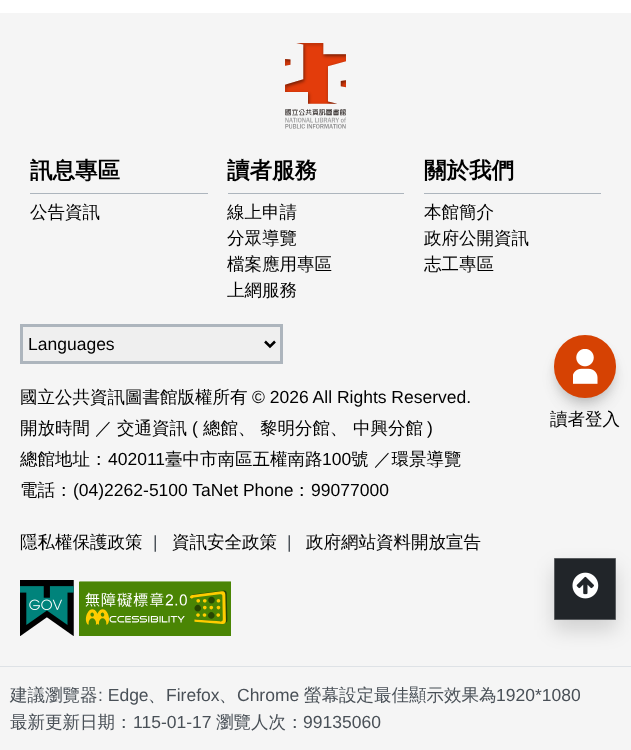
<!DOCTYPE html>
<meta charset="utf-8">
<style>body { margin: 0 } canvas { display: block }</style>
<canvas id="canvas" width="631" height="750"></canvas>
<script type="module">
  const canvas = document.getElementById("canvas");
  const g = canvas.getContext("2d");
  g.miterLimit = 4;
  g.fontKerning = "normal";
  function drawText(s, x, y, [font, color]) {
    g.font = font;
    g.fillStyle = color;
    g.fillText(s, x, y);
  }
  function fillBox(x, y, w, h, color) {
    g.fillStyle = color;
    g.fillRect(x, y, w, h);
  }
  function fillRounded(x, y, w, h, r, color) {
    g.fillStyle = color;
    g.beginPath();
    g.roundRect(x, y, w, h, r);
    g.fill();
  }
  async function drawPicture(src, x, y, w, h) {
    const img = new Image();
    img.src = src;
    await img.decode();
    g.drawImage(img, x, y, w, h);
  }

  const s1 = ["bold 22.5px WenQuanYi Zen Hei", "#000000"];
  const s2 = ["500 17.5px WenQuanYi Zen Hei", "#000000"];
  const s3 = ["17.5px Liberation Sans", "#000000"];
  const s4 = ["17.5px Liberation Sans", "#495057"];
  const s5 = ["500 17.5px WenQuanYi Zen Hei", "#495057"];

  fillBox(0, 0, 631, 750, "#FFFFFF");
  fillBox(0, 13, 631, 737, "#F5F5F5");
  await drawPicture("pic1.png", 285, 43, 61, 86);
  fillBox(30, 193, 178, 1, "#ADB5BD");
  drawText("訊息專區", 30, 178, s1);
  drawText("公告資訊", 30, 218, s2);
  fillBox(228, 193, 176, 1, "#ADB5BD");
  drawText("讀者服務", 227, 178, s1);
  drawText("線上申請", 227, 218, s2);
  drawText("分眾導覽", 227, 244, s2);
  drawText("檔案應用專區", 227, 270, s2);
  drawText("上網服務", 227, 296, s2);
  fillBox(424, 193, 177, 1, "#ADB5BD");
  drawText("關於我們", 424, 178, s1);
  drawText("本館簡介", 424, 218, s2);
  drawText("政府公開資訊", 424, 244, s2);
  drawText("志工專區", 424, 270, s2);
  g.fillStyle = "#EFEFEF";
  g.beginPath();
  g.rect(21.5, 325.5, 260, 37);
  g.fill();
  g.strokeStyle = "#ADB5BD";
  g.lineWidth = 3;
  g.stroke();
  g.beginPath();
  g.moveTo(265, 341.5);
  g.lineTo(270, 346.5);
  g.lineTo(275, 341.5);
  g.strokeStyle = "#000000";
  g.lineWidth = 2.5;
  g.stroke();
  drawText("Languages", 28, 350, s3);
  drawText("國立公共資訊圖書館版權所有", 20, 403, s2);
  drawText("© 2026 All Rights Reserved.", 252, 403, s3);
  drawText("開放時間", 20, 434, s2);
  drawText("／", 95, 434, s2);
  drawText("交通資訊", 117, 434, s2);
  drawText("(", 192, 434, s3);
  drawText("總館、", 203, 434, s2);
  drawText("黎明分館、", 260, 434, s2);
  drawText("中興分館", 353, 434, s2);
  drawText(")", 427, 434, s3);
  drawText("總館地址：", 20, 465, s2);
  drawText("402011", 108, 465, s3);
  drawText("臺中市南區五權南路", 165, 465, s2);
  drawText("100", 322, 465, s3);
  drawText("號", 351, 465, s2);
  drawText("／環景導覽", 374, 465, s2);
  drawText("電話：", 20, 496, s2);
  drawText("(04)2262-5100 TaNet Phone", 73, 496, s3);
  drawText("：", 293, 496, s2);
  drawText("99077000", 311, 496, s3);
  drawText("隱私權保護政策", 20, 548, s2);
  drawText("|", 153, 548, s4);
  drawText("資訊安全政策", 172, 548, s2);
  drawText("|", 287, 548, s4);
  drawText("政府網站資料開放宣告", 306, 548, s2);
  await drawPicture("pic2.png", 20, 580, 54, 56);
  await drawPicture("pic3.png", 79, 581, 152, 55);
  fillBox(0, 666, 631, 1, "#DEE2E6");
  drawText("建議瀏覽器", 10, 701, s5);
  drawText(": Edge", 98, 701, s4);
  drawText("、", 148, 701, s5);
  drawText("Firefox", 166, 701, s4);
  drawText("、", 219, 701, s5);
  drawText("Chrome", 237, 701, s4);
  drawText("螢幕設定最佳顯示效果為", 304, 701, s5);
  drawText("1920*1080", 496, 701, s4);
  drawText("最新更新日期：", 10, 728, s5);
  drawText("115-01-17", 133, 728, s4);
  drawText("瀏覽人次：", 216, 728, s5);
  drawText("99135060", 303, 728, s4);
  g.fillStyle = "rgba(0, 0, 0, 0.1)";
  g.filter = "blur(10px)";
  g.beginPath();
  g.roundRect(564, 360, 42, 43, 21);
  g.fill();
  g.filter = "none";
  g.filter = "blur(7.5px)";
  g.beginPath();
  g.roundRect(556, 348, 58, 57, 28.5);
  g.fill();
  g.filter = "none";
  g.filter = "blur(5px)";
  g.beginPath();
  g.roundRect(556, 343, 58, 57, 28.5);
  g.fill();
  g.filter = "none";
  fillRounded(554, 335, 62, 63, 31, "#D64203");
  await drawPicture("pic4.png", 573, 349, 25, 35);
  drawText("讀者登入", 550, 425, s2);
  g.fillStyle = "rgba(0, 0, 0, 0.15)";
  g.filter = "blur(10px)";
  g.beginPath();
  g.rect(554, 568, 62, 62);
  g.fill();
  g.filter = "none";
  g.fillStyle = "#212529";
  g.beginPath();
  g.rect(554.5, 558.5, 61, 61);
  g.fill();
  g.strokeStyle = "#595C5F";
  g.lineWidth = 1;
  g.stroke();
  await drawPicture("pic5.png", 572, 572, 27, 27);
</script>
